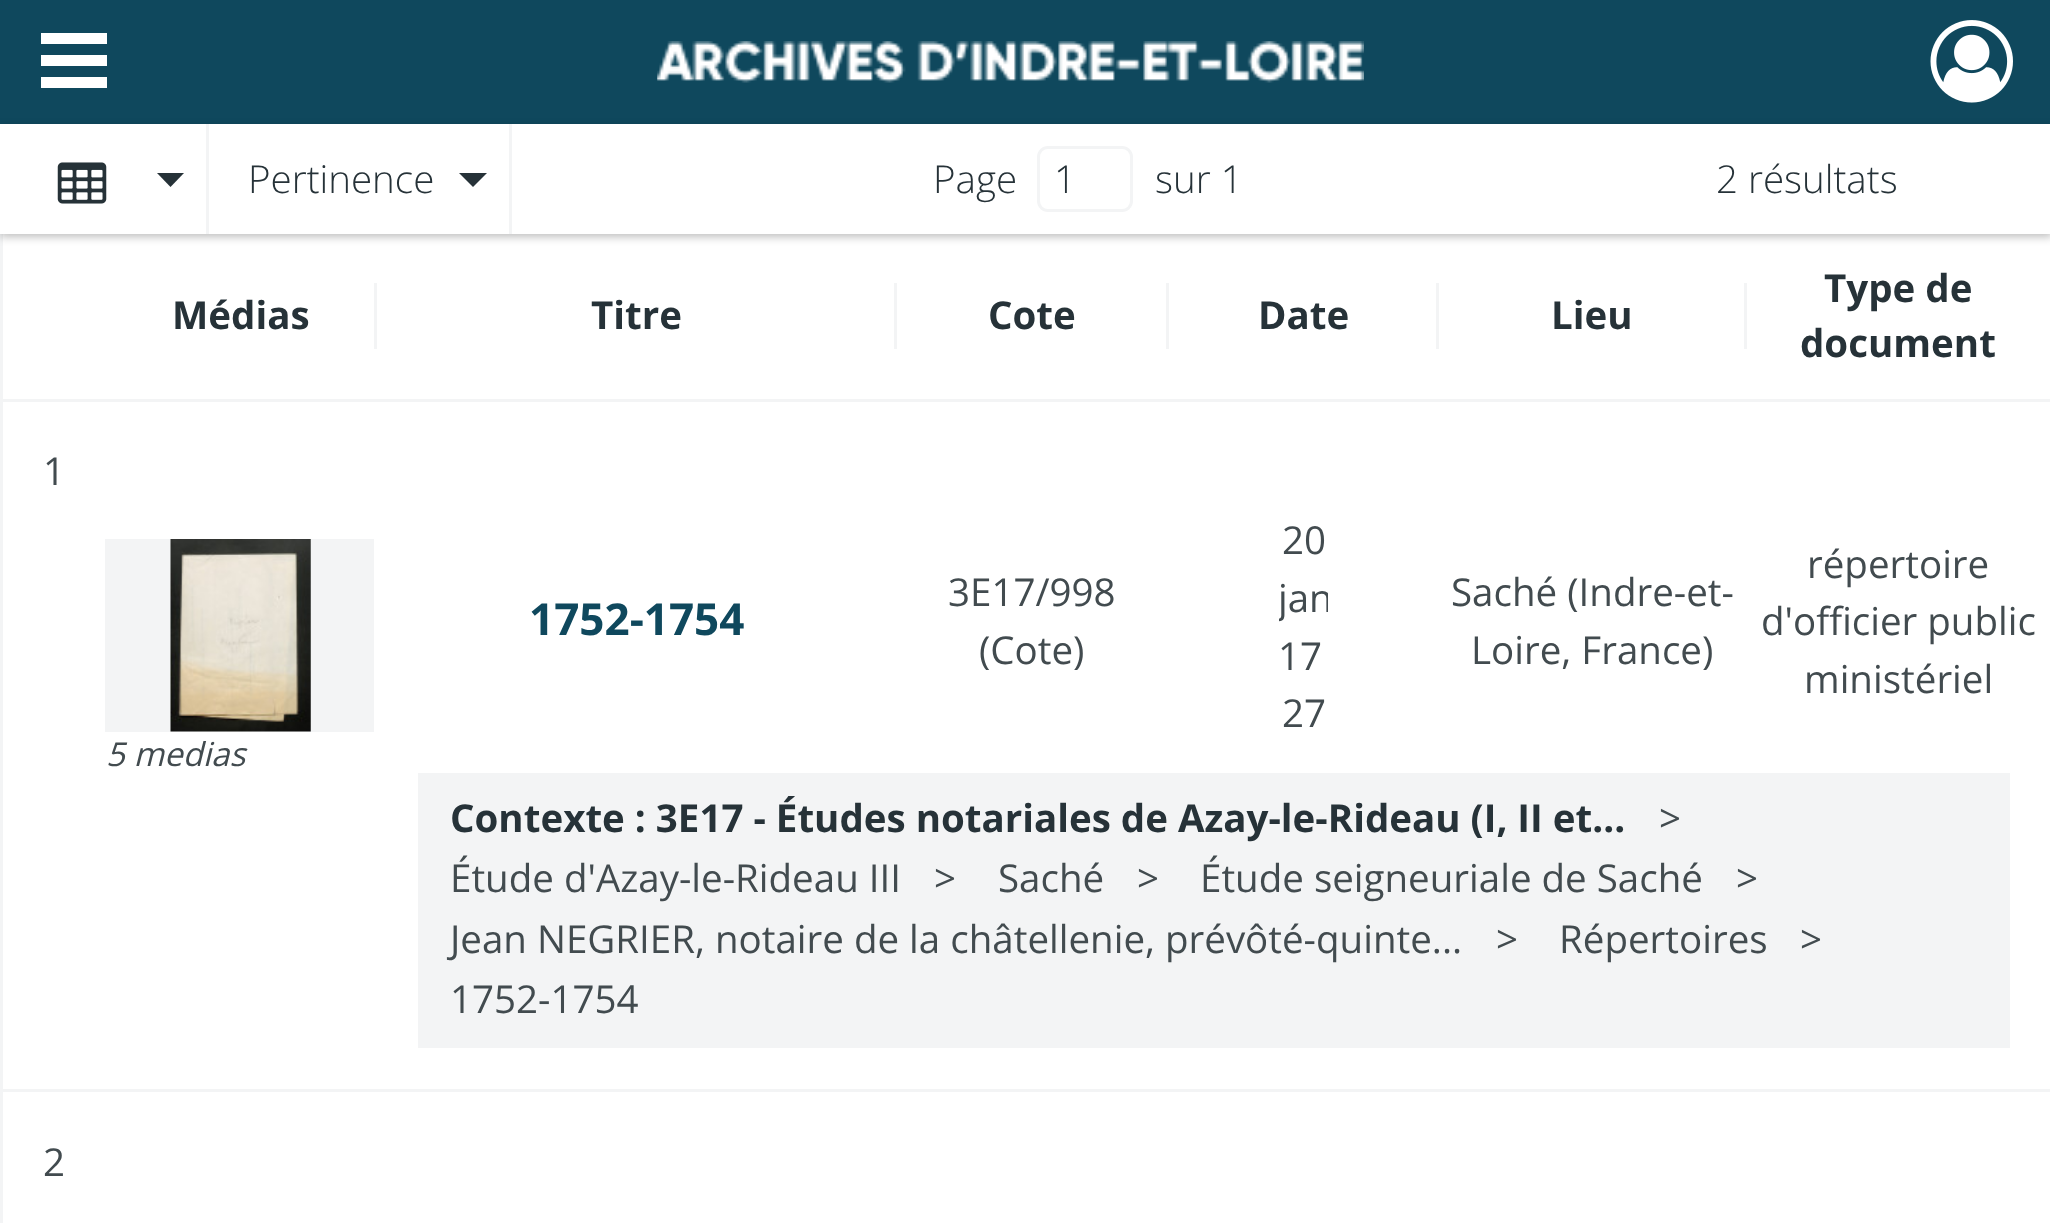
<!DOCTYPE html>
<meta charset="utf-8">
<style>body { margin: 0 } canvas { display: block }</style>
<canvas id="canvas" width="2050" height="1223"></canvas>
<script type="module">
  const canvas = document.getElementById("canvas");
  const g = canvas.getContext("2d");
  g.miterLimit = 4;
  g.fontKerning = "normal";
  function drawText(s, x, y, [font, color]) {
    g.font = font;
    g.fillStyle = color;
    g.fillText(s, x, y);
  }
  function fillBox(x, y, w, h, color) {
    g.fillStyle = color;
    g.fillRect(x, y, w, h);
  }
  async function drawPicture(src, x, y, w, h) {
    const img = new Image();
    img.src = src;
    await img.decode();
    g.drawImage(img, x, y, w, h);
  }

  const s1 = ["300 38.5px Open Sans", "#263238"];
  const s2 = ["bold 38.5px Open Sans", "#263238"];
  const s3 = ["38.5px Open Sans", "#424B4F"];
  const s4 = ["bold 44px Open Sans", "#0F485D"];
  const s5 = ["italic 33px Open Sans", "#424B4F"];

  fillBox(0, 0, 2050, 1223, "#FFFFFF");
  fillBox(0, 0, 2050, 124, "#0F485D");
  fillBox(41, 33, 66, 11, "#FFFFFF");
  fillBox(41, 55, 66, 11, "#FFFFFF");
  fillBox(41, 77, 66, 11, "#FFFFFF");
  await drawPicture("pic1.png", 657, 41, 707, 42);
  await drawPicture("pic2.png", 1930, 20, 83, 83);
  fillBox(0, 234, 3, 989, "#F3F4F5");
  g.fillStyle = "rgba(0, 0, 0, 0.25)";
  g.filter = "blur(4px)";
  g.beginPath();
  g.rect(0, 127, 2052, 110);
  g.fill();
  g.filter = "none";
  fillBox(0, 124, 2050, 110, "#FFFFFF");
  fillBox(206, 124, 3, 110, "#F3F4F5");
  await drawPicture("pic3.png", 57, 162, 50, 42);
  g.fillStyle = "#263238";
  g.beginPath();
  g.moveTo(157, 173);
  g.lineTo(184, 173);
  g.lineTo(170.5, 187);
  g.closePath();
  g.fill();
  fillBox(509, 124, 3, 110, "#F3F4F5");
  drawText("Pertinence", 248, 193, s1);
  g.beginPath();
  g.moveTo(459, 173);
  g.lineTo(487, 173);
  g.lineTo(473, 187);
  g.closePath();
  g.fill();
  drawText("Page", 933, 193, s1);
  g.beginPath();
  g.roundRect(1038.5, 147.5, 93, 63, 9.5);
  g.strokeStyle = "#F3F4F5";
  g.lineWidth = 3;
  g.stroke();
  drawText("1", 1054, 193, s1);
  drawText("sur 1", 1155, 193, s1);
  drawText("2 résultats", 1716, 193, s1);
  drawText("Médias", 172, 329, s2);
  fillBox(374, 283, 3, 66, "#F3F4F5");
  drawText("Titre", 591, 329, s2);
  fillBox(894, 283, 3, 66, "#F3F4F5");
  drawText("Cote", 988, 329, s2);
  fillBox(1166, 283, 3, 66, "#F3F4F5");
  drawText("Date", 1258, 329, s2);
  fillBox(1436, 283, 3, 66, "#F3F4F5");
  drawText("Lieu", 1551, 329, s2);
  fillBox(1744, 283, 3, 66, "#F3F4F5");
  fillBox(3, 399, 2047, 3, "#F3F4F5");
  drawText("Type de", 1824, 302, s2);
  drawText("document", 1800, 357, s2);
  drawText("1", 43, 485, s3);
  drawText("1752-1754", 529, 635, s4);
  drawText("3E17/998", 948, 606, s3);
  drawText("(Cote)", 979, 664, s3);
  drawText("20", 1282, 554, s3);
  g.save();
  g.beginPath();
  g.rect(1279, 512, 49, 220);
  g.clip();
  drawText("jan", 1278, 612, s3);
  g.restore();
  drawText("17", 1278, 670, s3);
  drawText("27", 1282, 727, s3);
  drawText("Saché (Indre-et-", 1451, 606, s3);
  drawText("Loire, France)", 1471, 664, s3);
  drawText("répertoire", 1807, 578, s3);
  drawText("d'officier public", 1761, 635, s3);
  drawText("ministériel", 1804, 693, s3);
  fillBox(105, 539, 269, 193, "#F3F4F5");
  await drawPicture("pic4.png", 170, 539, 141, 193);
  drawText("5 medias", 106, 766, s5);
  fillBox(3, 1089, 2047, 3, "#F3F4F5");
  fillBox(418, 773, 1592, 275, "#F3F4F5");
  drawText("Contexte : 3E17 - Études notariales de Azay-le-Rideau (I, II et...", 450, 832, s2);
  drawText(">", 1659, 832, s3);
  drawText("Étude d'Azay-le-Rideau III", 450, 892, s3);
  drawText(">", 934, 892, s3);
  drawText("Saché", 998, 892, s3);
  drawText(">", 1137, 892, s3);
  drawText("Étude seigneuriale de Saché", 1200, 892, s3);
  drawText(">", 1736, 892, s3);
  drawText("Jean NEGRIER, notaire de la châtellenie, prévôté-quinte...", 450, 953, s3);
  drawText(">", 1496, 953, s3);
  drawText("Répertoires", 1559, 953, s3);
  drawText(">", 1800, 953, s3);
  drawText("1752-1754", 450, 1013, s3);
  drawText("2", 43, 1176, s3);
</script>
